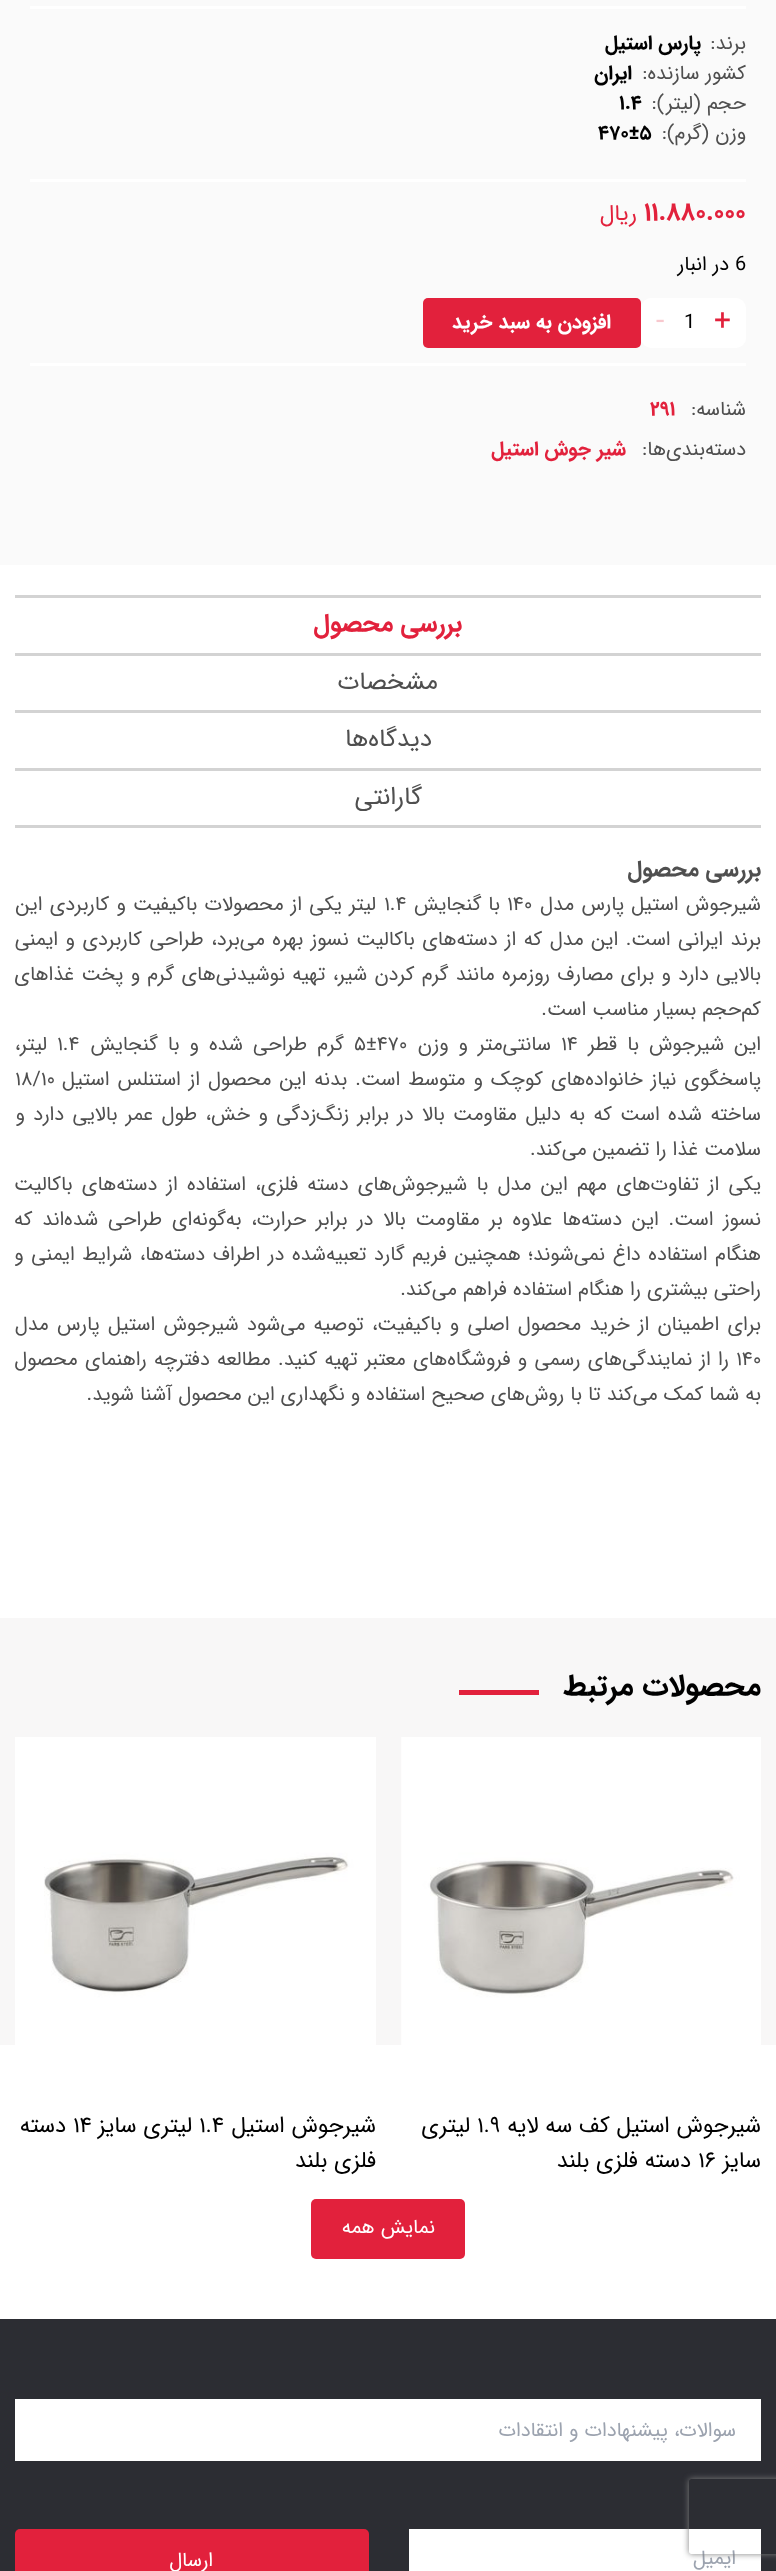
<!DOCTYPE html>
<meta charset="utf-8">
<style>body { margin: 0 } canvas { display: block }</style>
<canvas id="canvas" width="776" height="2571"></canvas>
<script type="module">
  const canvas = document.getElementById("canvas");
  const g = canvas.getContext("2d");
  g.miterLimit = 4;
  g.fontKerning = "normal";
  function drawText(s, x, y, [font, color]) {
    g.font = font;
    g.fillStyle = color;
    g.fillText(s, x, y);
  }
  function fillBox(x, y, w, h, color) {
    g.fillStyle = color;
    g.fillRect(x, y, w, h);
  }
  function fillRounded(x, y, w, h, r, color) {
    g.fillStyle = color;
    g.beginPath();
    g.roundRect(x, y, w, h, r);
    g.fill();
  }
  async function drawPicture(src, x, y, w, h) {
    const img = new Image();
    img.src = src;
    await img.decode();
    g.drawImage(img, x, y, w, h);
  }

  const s1 = ["20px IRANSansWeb", "#4F4F4F"];
  const s2 = ["bold 20px IRANSansWeb", "#000000"];
  const s3 = ["bold 25px IRANSansWeb", "#E2213C"];
  const s4 = ["22.5px IRANSansWeb", "#E2213C"];
  const s5 = ["20px IRANSansWeb", "#000000"];
  const s6 = ["30px IRANSansWeb", "#E2213C"];
  const s7 = ["30px IRANSansWeb", "#F8C8CE"];
  const s8 = ["bold 20px IRANSansWeb", "#FFFFFF"];
  const s9 = ["bold 20px IRANSansWeb", "#E2213C"];
  const s10 = ["25px IRANSansWeb", "#4F4F4F"];
  const s11 = ["bold 22.5px IRANSansWeb", "#4F4F4F"];
  const s12 = ["bold 30px IRANSansWeb", "#000000"];
  const s13 = ["22.5px IRANSansWeb", "#000000"];
  const s14 = ["20px IRANSansWeb", "#FFFFFF"];
  const s15 = ["20px IRANSansWeb", "#9CA3AF"];

  fillBox(0, 0, 776, 2571, "#FFFFFF");
  fillBox(0, 0, 776, 565, "#FAFAFA");
  fillBox(30, 6, 716, 3, "#FFFFFF");
  g.direction = "rtl";
  drawText("برند:", 746, 49, s1);
  drawText("پارس استیل", 701, 49, s2);
  drawText("کشور سازنده:", 746, 79, s1);
  drawText("ایران", 632, 79, s2);
  drawText("حجم (لیتر):", 746, 109, s1);
  g.direction = "ltr";
  drawText("۱.۴", 619, 109, s2);
  g.direction = "rtl";
  drawText("وزن (گرم):", 746, 139, s1);
  g.direction = "ltr";
  drawText("۴۷۰±۵", 598, 139, s2);
  fillBox(30, 179, 716, 3, "#FFFFFF");
  fillBox(30, 363, 716, 3, "#FFFFFF");
  drawText("۱۱.۸۸۰.۰۰۰", 644, 220, s3);
  g.direction = "rtl";
  drawText("ریال", 637, 220, s4);
  g.direction = "ltr";
  drawText("6", 735, 270, s5);
  g.direction = "rtl";
  drawText("در انبار", 729, 270, s5);
  fillRounded(641, 298, 105, 50, 10, "#FFFFFF");
  g.direction = "ltr";
  drawText("+", 714, 330, s6);
  drawText("1", 684, 328, s5);
  drawText("-", 656, 330, s7);
  fillRounded(423, 298, 218, 50, 5, "#E2213C");
  g.direction = "rtl";
  drawText("افزودن به سبد خرید", 611, 328, s8);
  drawText("شناسه:", 746, 415, s1);
  g.direction = "ltr";
  drawText("۲۹۱", 650, 415, s9);
  g.direction = "rtl";
  drawText("دسته‌بندی‌ها:", 746, 455, s1);
  drawText("شیر جوش استیل", 626, 455, s9);
  fillBox(15, 595, 746, 3, "#D3D3D3");
  fillBox(15, 653, 746, 3, "#D3D3D3");
  drawText("بررسی محصول", 462, 631, s3);
  fillBox(15, 710, 746, 3, "#D3D3D3");
  drawText("مشخصات", 438, 689, s10);
  fillBox(15, 768, 746, 3, "#D3D3D3");
  drawText("دیدگاه‌ها", 432, 746, s10);
  fillBox(15, 825, 746, 3, "#D3D3D3");
  drawText("گارانتی", 422, 804, s10);
  drawText("بررسی محصول", 761, 876, s11);
  g.wordSpacing = "1.25px";
  drawText("شیرجوش استیل پارس مدل", 761, 910, s1);
  g.wordSpacing = "0px";
  g.direction = "ltr";
  drawText("۱۴۰", 507, 910, s1);
  g.wordSpacing = "1px";
  g.direction = "rtl";
  drawText("با گنجایش", 500, 910, s1);
  g.wordSpacing = "0px";
  g.direction = "ltr";
  drawText("۱.۴", 384, 910, s1);
  g.wordSpacing = "1.25px";
  g.direction = "rtl";
  drawText("لیتر یکی از محصولات باکیفیت و کاربردی این", 376, 910, s1);
  g.wordSpacing = "1.5px";
  drawText("برند ایرانی است. این مدل که از دسته‌های باکالیت نسوز بهره می‌برد، طراحی کاربردی و ایمنی", 761, 945, s1);
  g.wordSpacing = "1.25px";
  drawText("بالایی دارد و برای مصارف روزمره مانند گرم کردن شیر، تهیه نوشیدنی‌های گرم و پخت غذاهای", 761, 980, s1);
  g.wordSpacing = "0px";
  drawText("کم‌حجم بسیار مناسب است.", 761, 1015, s1);
  g.wordSpacing = "4px";
  drawText("این شیرجوش با قطر", 761, 1050, s1);
  g.wordSpacing = "0px";
  g.direction = "ltr";
  drawText("۱۴", 561, 1050, s1);
  g.wordSpacing = "4px";
  g.direction = "rtl";
  drawText("سانتی‌متر و وزن", 551, 1050, s1);
  g.wordSpacing = "0px";
  g.direction = "ltr";
  drawText("۵±۴۷۰", 354, 1050, s1);
  g.wordSpacing = "4px";
  g.direction = "rtl";
  drawText("گرم طراحی شده و با گنجایش", 344, 1050, s1);
  g.wordSpacing = "0px";
  g.direction = "ltr";
  drawText("۱.۴", 57, 1050, s1);
  g.direction = "rtl";
  drawText("لیتر،", 47, 1050, s1);
  g.wordSpacing = "2px";
  drawText("پاسخگوی نیاز خانواده‌های کوچک و متوسط است. بدنه این محصول از استنلس استیل", 761, 1085, s1);
  g.wordSpacing = "0px";
  g.direction = "ltr";
  drawText("۱۸/۱۰", 15, 1085, s1);
  g.wordSpacing = "2.4px";
  g.direction = "rtl";
  drawText("ساخته شده است که به دلیل مقاومت بالا در برابر زنگ‌زدگی و خش، طول عمر بالایی دارد و", 761, 1120, s1);
  g.wordSpacing = "0px";
  drawText("سلامت غذا را تضمین می‌کند.", 761, 1155, s1);
  g.wordSpacing = "3.25px";
  drawText("یکی از تفاوت‌های مهم این مدل با شیرجوش‌های دسته فلزی، استفاده از دسته‌های باکالیت", 761, 1190, s1);
  g.wordSpacing = "3.75px";
  drawText("نسوز است. این دسته‌ها علاوه بر مقاومت بالا در برابر حرارت، به‌گونه‌ای طراحی شده‌اند که", 761, 1225, s1);
  g.wordSpacing = "1.7px";
  drawText("هنگام استفاده داغ نمی‌شوند؛ همچنین فریم گارد تعبیه‌شده در اطراف دسته‌ها، شرایط ایمنی و", 761, 1260, s1);
  g.wordSpacing = "0px";
  drawText("راحتی بیشتری را هنگام استفاده فراهم می‌کند.", 761, 1295, s1);
  g.wordSpacing = "2.25px";
  drawText("برای اطمینان از خرید محصول اصلی و باکیفیت، توصیه می‌شود شیرجوش استیل پارس مدل", 761, 1330, s1);
  g.wordSpacing = "0px";
  g.direction = "ltr";
  drawText("۱۴۰", 736, 1365, s1);
  g.wordSpacing = "1.25px";
  g.direction = "rtl";
  drawText("را از نمایندگی‌های رسمی و فروشگاه‌های معتبر تهیه کنید. مطالعه دفترچه راهنمای محصول", 729, 1365, s1);
  g.wordSpacing = "0px";
  drawText("به شما کمک می‌کند تا با روش‌های صحیح استفاده و نگهداری این محصول آشنا شوید.", 761, 1400, s1);
  fillBox(0, 1618, 776, 427, "#F8F7F7");
  drawText("محصولات مرتبط", 761, 1695, s12);
  fillBox(459, 1690, 80, 5, "#E2213C");
  await drawPicture("pic1.png", 401, 1737, 360, 308);
  drawText("شیرجوش استیل کف سه لایه", 761, 2132, s13);
  g.direction = "ltr";
  drawText("۱.۹", 477, 2132, s13);
  g.direction = "rtl";
  drawText("لیتری", 470, 2132, s13);
  drawText("سایز", 761, 2167, s13);
  g.direction = "ltr";
  drawText("۱۶", 698, 2167, s13);
  g.direction = "rtl";
  drawText("دسته فلزی بلند", 691, 2167, s13);
  await drawPicture("pic2.png", 15, 1737, 361, 308);
  drawText("شیرجوش استیل", 376, 2132, s13);
  g.direction = "ltr";
  drawText("۱.۴", 199, 2132, s13);
  g.direction = "rtl";
  drawText("لیتری سایز", 192, 2132, s13);
  g.direction = "ltr";
  drawText("۱۴", 73, 2132, s13);
  g.direction = "rtl";
  drawText("دسته", 66, 2132, s13);
  drawText("فلزی بلند", 376, 2167, s13);
  fillRounded(311, 2199, 154, 60, 5, "#E2213C");
  drawText("نمایش همه", 435, 2233, s14);
  fillBox(0, 2319, 776, 252, "#2C2D33");
  fillBox(15, 2399, 746, 62, "#FFFFFF");
  drawText("سوالات، پیشنهادات و انتقادات", 736, 2436, s15);
  fillBox(409, 2529, 352, 42, "#FFFFFF");
  drawText("ایمیل", 736, 2564, s15);
  fillRounded(15, 2529, 354, 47, 5, "#E2213C");
  drawText("ارسال", 213, 2566, s14);
  g.save();
  g.beginPath();
  g.moveTo(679, 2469);
  g.lineTo(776, 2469);
  g.lineTo(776, 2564);
  g.lineTo(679, 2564);
  g.closePath();
  g.moveTo(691.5, 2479);
  g.lineTo(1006.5, 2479);
  g.bezierCurveTo(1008, 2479, 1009, 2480, 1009, 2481.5);
  g.lineTo(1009, 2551.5);
  g.bezierCurveTo(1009, 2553, 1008, 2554, 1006.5, 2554);
  g.lineTo(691.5, 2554);
  g.bezierCurveTo(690, 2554, 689, 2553, 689, 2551.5);
  g.lineTo(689, 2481.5);
  g.bezierCurveTo(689, 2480, 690, 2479, 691.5, 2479);
  g.closePath();
  g.clip("evenodd");
  g.fillStyle = "#808080";
  g.filter = "blur(3px)";
  g.beginPath();
  g.roundRect(689, 2479, 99, 75, 2.5);
  g.fill();
  g.filter = "none";
  g.restore();
</script>
